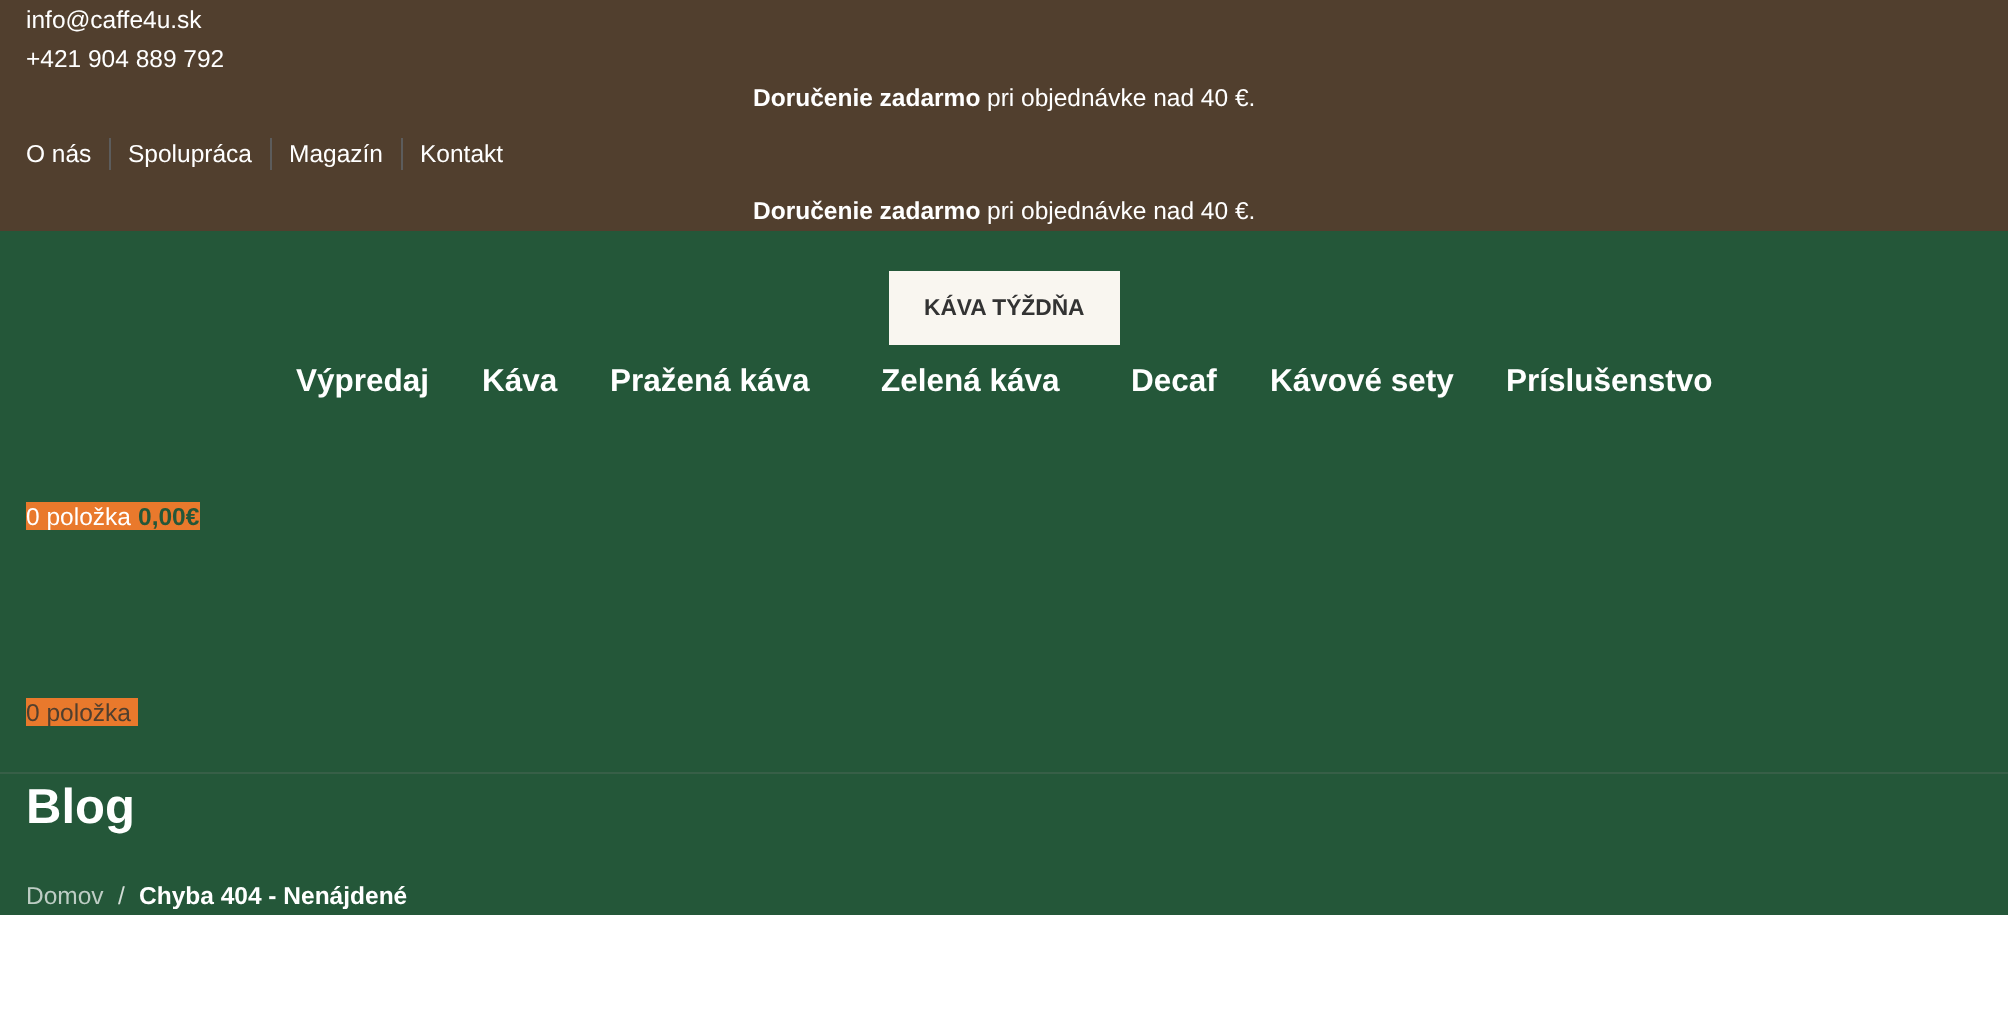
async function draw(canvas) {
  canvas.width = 2008
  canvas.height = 1016
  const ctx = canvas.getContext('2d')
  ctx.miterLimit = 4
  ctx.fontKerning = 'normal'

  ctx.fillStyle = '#fff'
  ctx.fillRect(0, 0, 2008, 1016)
  ctx.fillStyle = '#513f2e'
  ctx.fillRect(0, 0, 2008, 231)
  ctx.font = '24.5px Liberation Sans'
  ctx.fillStyle = '#fff'
  ctx.fillText('info@caffe4u.sk', 26, 28)
  ctx.fillText('+421 904 889 792', 26, 67)
  ctx.font = 'bold 24.5px Liberation Sans'
  ctx.fillText('Doručenie zadarmo', 753, 106)
  ctx.font = '24.5px Liberation Sans'
  ctx.fillText('pri objednávke nad 40 €.', 987, 106)
  ctx.fillText('O nás', 26, 162)
  ctx.fillStyle = '#5c5c5c'
  ctx.fillRect(109, 138, 2, 32)
  ctx.fillStyle = '#fff'
  ctx.fillText('Spolupráca', 128, 162)
  ctx.fillStyle = '#5c5c5c'
  ctx.fillRect(270, 138, 2, 32)
  ctx.fillStyle = '#fff'
  ctx.fillText('Magazín', 289, 162)
  ctx.fillStyle = '#5c5c5c'
  ctx.fillRect(401, 138, 2, 32)
  ctx.fillStyle = '#fff'
  ctx.fillText('Kontakt', 420, 162)
  ctx.font = 'bold 24.5px Liberation Sans'
  ctx.fillText('Doručenie zadarmo', 753, 219)
  ctx.font = '24.5px Liberation Sans'
  ctx.fillText('pri objednávke nad 40 €.', 987, 219)
  ctx.fillStyle = '#245739'
  ctx.fillRect(0, 231, 2008, 541)
  ctx.fillStyle = '#375f47'
  ctx.fillRect(0, 772, 2008, 2)
  ctx.fillStyle = '#f9f6f0'
  ctx.fillRect(889, 271, 231, 74)
  ctx.font = 'bold 22.75px Liberation Sans'
  ctx.fillStyle = '#333'
  ctx.fillText('KÁVA TÝŽDŇA', 924, 315)
  ctx.font = 'bold 31.5px Liberation Sans'
  ctx.fillStyle = '#fff'
  ctx.fillText('Výpredaj', 296, 391)
  ctx.fillText('Káva', 482, 391)
  ctx.fillText('Pražená káva', 610, 391)
  ctx.fillText('Zelená káva', 881, 391)
  ctx.fillText('Decaf', 1131, 391)
  ctx.fillText('Kávové sety', 1270, 391)
  ctx.fillText('Príslušenstvo', 1506, 391)
  ctx.fillStyle = '#e9792c'
  ctx.fillRect(26, 502, 174, 28)
  ctx.font = '24.5px Liberation Sans'
  ctx.fillStyle = '#fff'
  ctx.fillText('0 položka', 26, 525)
  ctx.font = 'bold 24.5px Liberation Sans'
  ctx.fillStyle = '#245739'
  ctx.fillText('0,00€', 138, 525)
  ctx.fillStyle = '#e9792c'
  ctx.fillRect(26, 698, 112, 28)
  ctx.font = '24.5px Liberation Sans'
  ctx.fillStyle = '#513f2e'
  ctx.fillText('0 položka', 26, 721)
  ctx.fillStyle = '#245739'
  ctx.fillRect(0, 774, 2008, 141)
  ctx.font = 'bold 49px Liberation Sans'
  ctx.fillStyle = '#fff'
  ctx.fillText('Blog', 26, 823)
  ctx.font = '24.5px Liberation Sans'
  ctx.fillStyle = '#bdcdc4'
  ctx.fillText('Domov', 26, 904)
  ctx.fillStyle = '#d3ddd7'
  ctx.fillText('/', 118, 904)
  ctx.font = 'bold 24.5px Liberation Sans'
  ctx.fillStyle = '#fff'
  ctx.fillText('Chyba 404 - Nenájdené', 139, 904)
}

draw(document.querySelector('canvas'))
